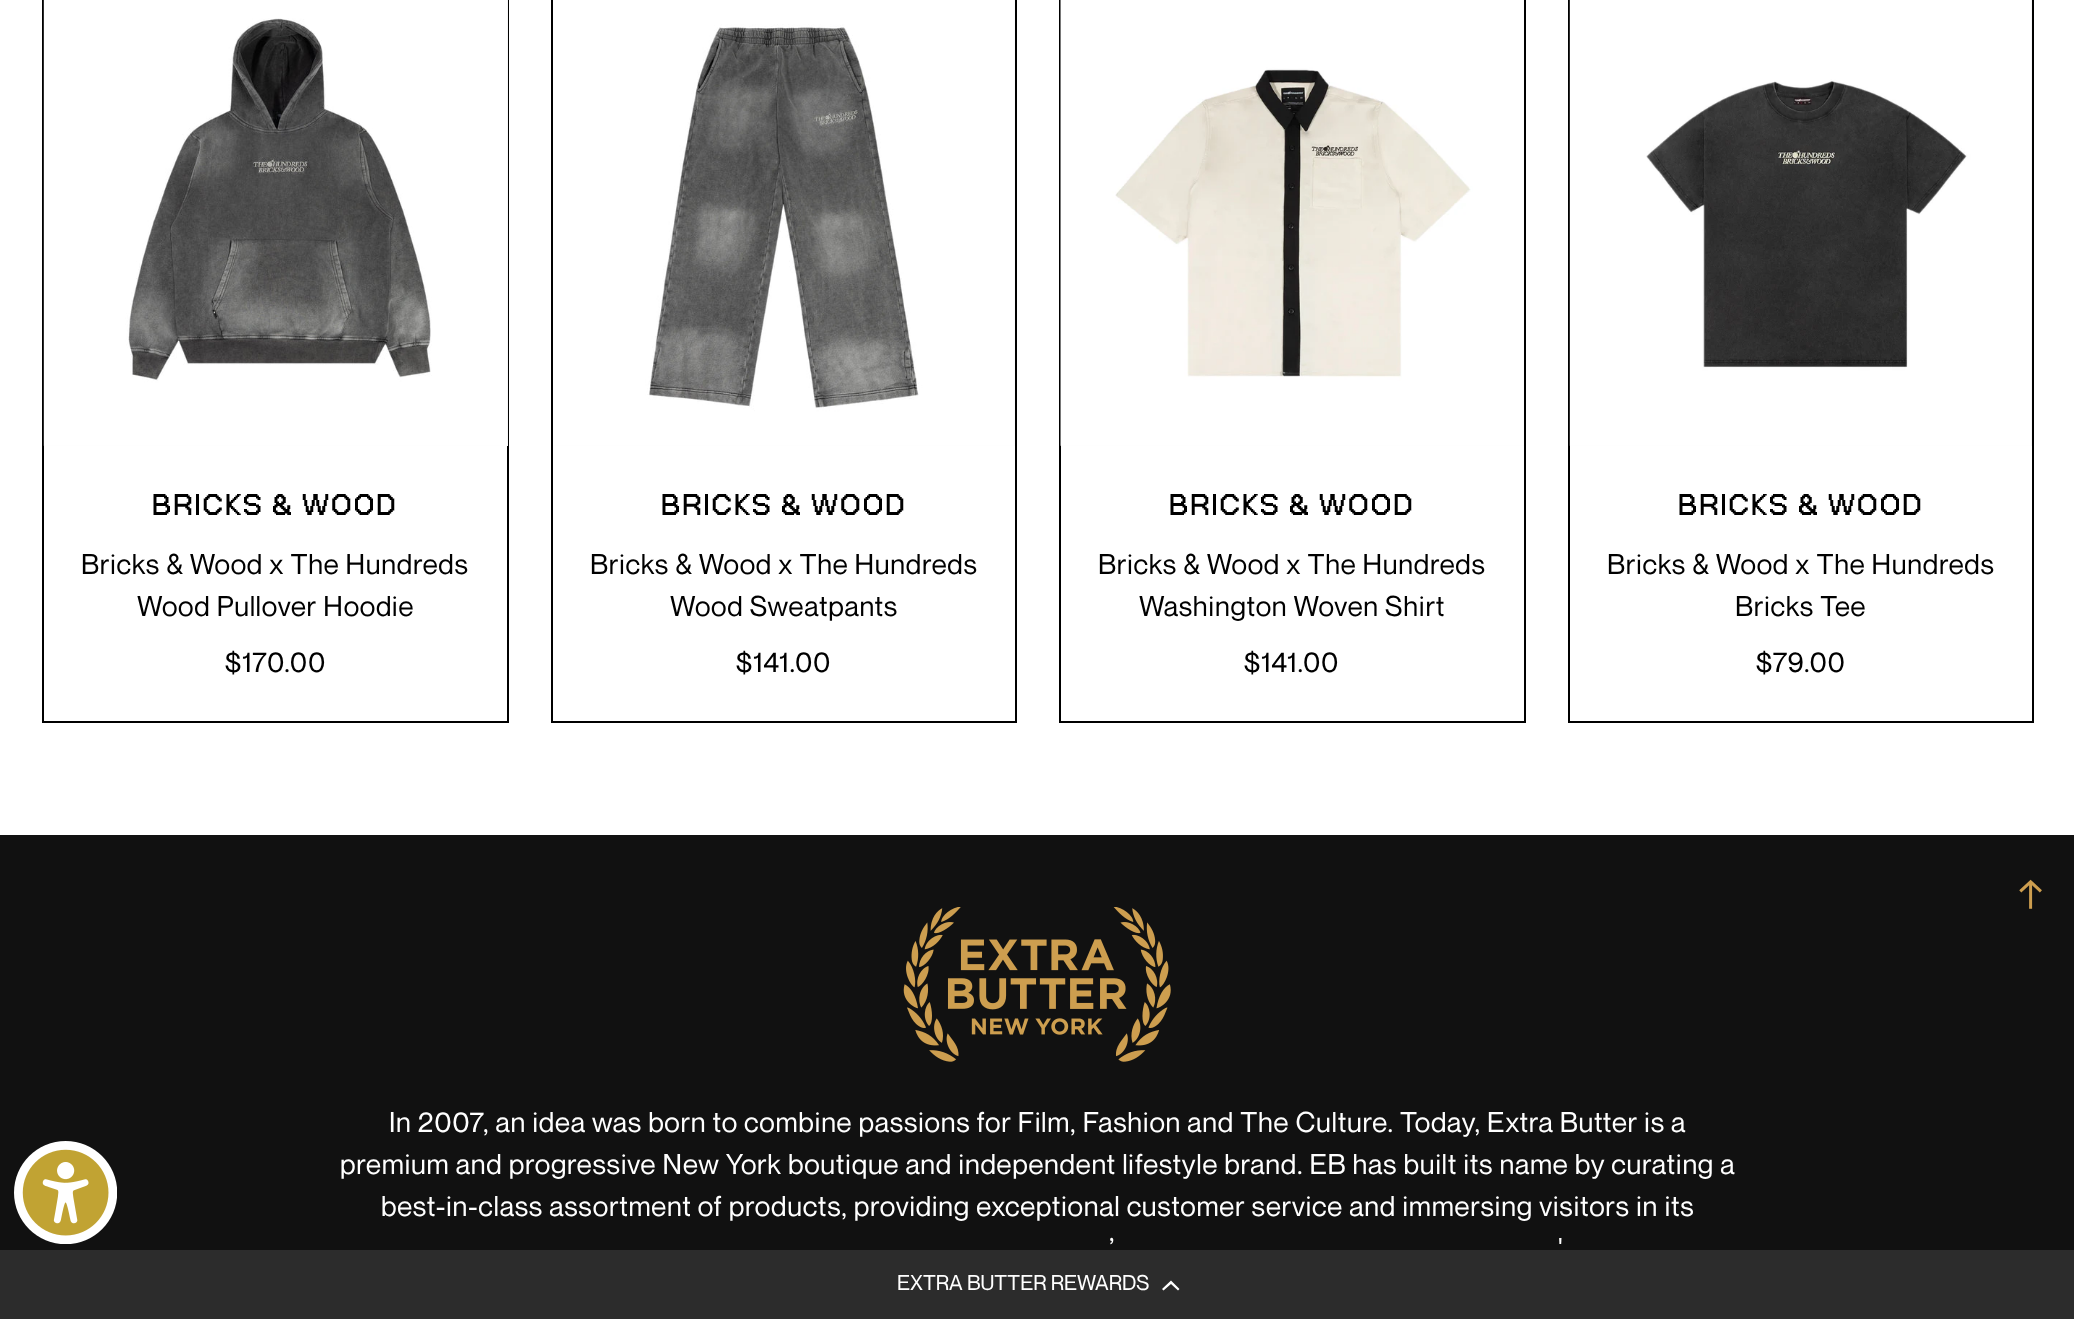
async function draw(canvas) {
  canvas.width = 2074
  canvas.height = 1319
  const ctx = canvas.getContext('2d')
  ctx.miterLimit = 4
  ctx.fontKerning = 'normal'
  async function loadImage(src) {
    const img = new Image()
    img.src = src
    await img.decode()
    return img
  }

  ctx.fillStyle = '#fff'
  ctx.fillRect(0, 0, 2074, 1319)
  ctx.fillStyle = '#111'
  ctx.fillRect(0, 835, 2074, 415)
  ctx.drawImage(await loadImage('image0.png'), 14, 1141, 103, 103)
  ctx.strokeStyle = '#000'
  ctx.lineWidth = 2
  ctx.strokeRect(43, -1, 465, 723)
  ctx.fillStyle = '#f6f6f7'
  ctx.fillRect(44, 0, 464, 446)
  ctx.drawImage(await loadImage('image1.png'), 43, 0, 464, 446)
  ctx.letterSpacing = '1.75px'
  ctx.font = 'bold 42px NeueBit'
  ctx.fillStyle = '#000'
  ctx.fillText('BRICKS & WOOD', 152, 515)
  ctx.letterSpacing = '0.7px'
  ctx.font = '28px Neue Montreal'
  ctx.fillText('Bricks & Wood x The Hundreds', 81, 574)
  ctx.fillText('Wood Pullover Hoodie', 137, 616)
  ctx.fillText('$170.00', 225, 672)
  ctx.strokeRect(552, -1, 464, 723)
  ctx.fillStyle = '#f6f6f7'
  ctx.fillRect(553, 0, 462, 446)
  ctx.drawImage(await loadImage('image2.png'), 553, 0, 462, 446)
  ctx.letterSpacing = '1.75px'
  ctx.font = 'bold 42px NeueBit'
  ctx.fillStyle = '#000'
  ctx.fillText('BRICKS & WOOD', 661, 515)
  ctx.letterSpacing = '0.7px'
  ctx.font = '28px Neue Montreal'
  ctx.fillText('Bricks & Wood x The Hundreds', 590, 574)
  ctx.fillText('Wood Sweatpants', 670, 616)
  ctx.fillText('$141.00', 736, 672)
  ctx.strokeRect(1060, -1, 465, 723)
  ctx.fillStyle = '#f6f6f7'
  ctx.fillRect(1061, 0, 463, 446)
  ctx.drawImage(await loadImage('image3.png'), 1060, 0, 464, 446)
  ctx.letterSpacing = '1.75px'
  ctx.font = 'bold 42px NeueBit'
  ctx.fillStyle = '#000'
  ctx.fillText('BRICKS & WOOD', 1169, 515)
  ctx.letterSpacing = '0.7px'
  ctx.font = '28px Neue Montreal'
  ctx.fillText('Bricks & Wood x The Hundreds', 1098, 574)
  ctx.fillText('Washington Woven Shirt', 1139, 616)
  ctx.fillText('$141.00', 1244, 672)
  ctx.strokeRect(1569, -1, 464, 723)
  ctx.fillStyle = '#f6f6f7'
  ctx.fillRect(1570, 0, 462, 446)
  ctx.drawImage(await loadImage('image4.png'), 1569, 0, 462, 446)
  ctx.letterSpacing = '1.75px'
  ctx.font = 'bold 42px NeueBit'
  ctx.fillStyle = '#000'
  ctx.fillText('BRICKS & WOOD', 1678, 515)
  ctx.letterSpacing = '0.7px'
  ctx.font = '28px Neue Montreal'
  ctx.fillText('Bricks & Wood x The Hundreds', 1607, 574)
  ctx.fillText('Bricks Tee', 1735, 616)
  ctx.fillText('$79.00', 1756, 672)
  ctx.letterSpacing = '0px'
  ctx.font = '42px Neue Montreal'
  ctx.fillStyle = '#cd9e4f'
  ctx.save()
  ctx.translate(2044, 910)
  ctx.rotate(-90 * Math.PI / 180)
  ctx.fillText('→', 0, 0)
  ctx.restore()
  ctx.drawImage(await loadImage('image5.png'), 903, 907, 268, 155)
  ctx.letterSpacing = '0.7px'
  ctx.font = '28px Neue Montreal'
  ctx.fillStyle = '#fff'
  ctx.fillText('In 2007, an idea was born to combine passions for Film, Fashion and The Culture. Today, Extra Butter is a', 389, 1132)
  ctx.fillText('premium and progressive New York boutique and independent lifestyle brand. EB has built its name by curating a', 340, 1174)
  ctx.fillText('best-in-class assortment of products, providing exceptional customer service and immersing visitors in its', 381, 1216)
  ctx.fillText('’', 1109, 1258)
  ctx.fillText('\'', 1558, 1258)
  ctx.fillStyle = '#2c2c2c'
  ctx.fillRect(0, 1250, 2074, 69)
  ctx.letterSpacing = '0px'
  ctx.font = '21px Neue Montreal'
  ctx.fillStyle = '#fff'
  ctx.fillText('EXTRA BUTTER REWARDS', 897, 1290)
  ctx.beginPath()
  ctx.moveTo(1171, 1284)
  ctx.lineTo(1163.5, 1290.5)
  ctx.lineTo(1162, 1289)
  ctx.lineTo(1171, 1280.5)
  ctx.lineTo(1179.5, 1289)
  ctx.lineTo(1178, 1290.5)
  ctx.closePath()
  ctx.fill()
}

draw(document.querySelector('canvas'))
